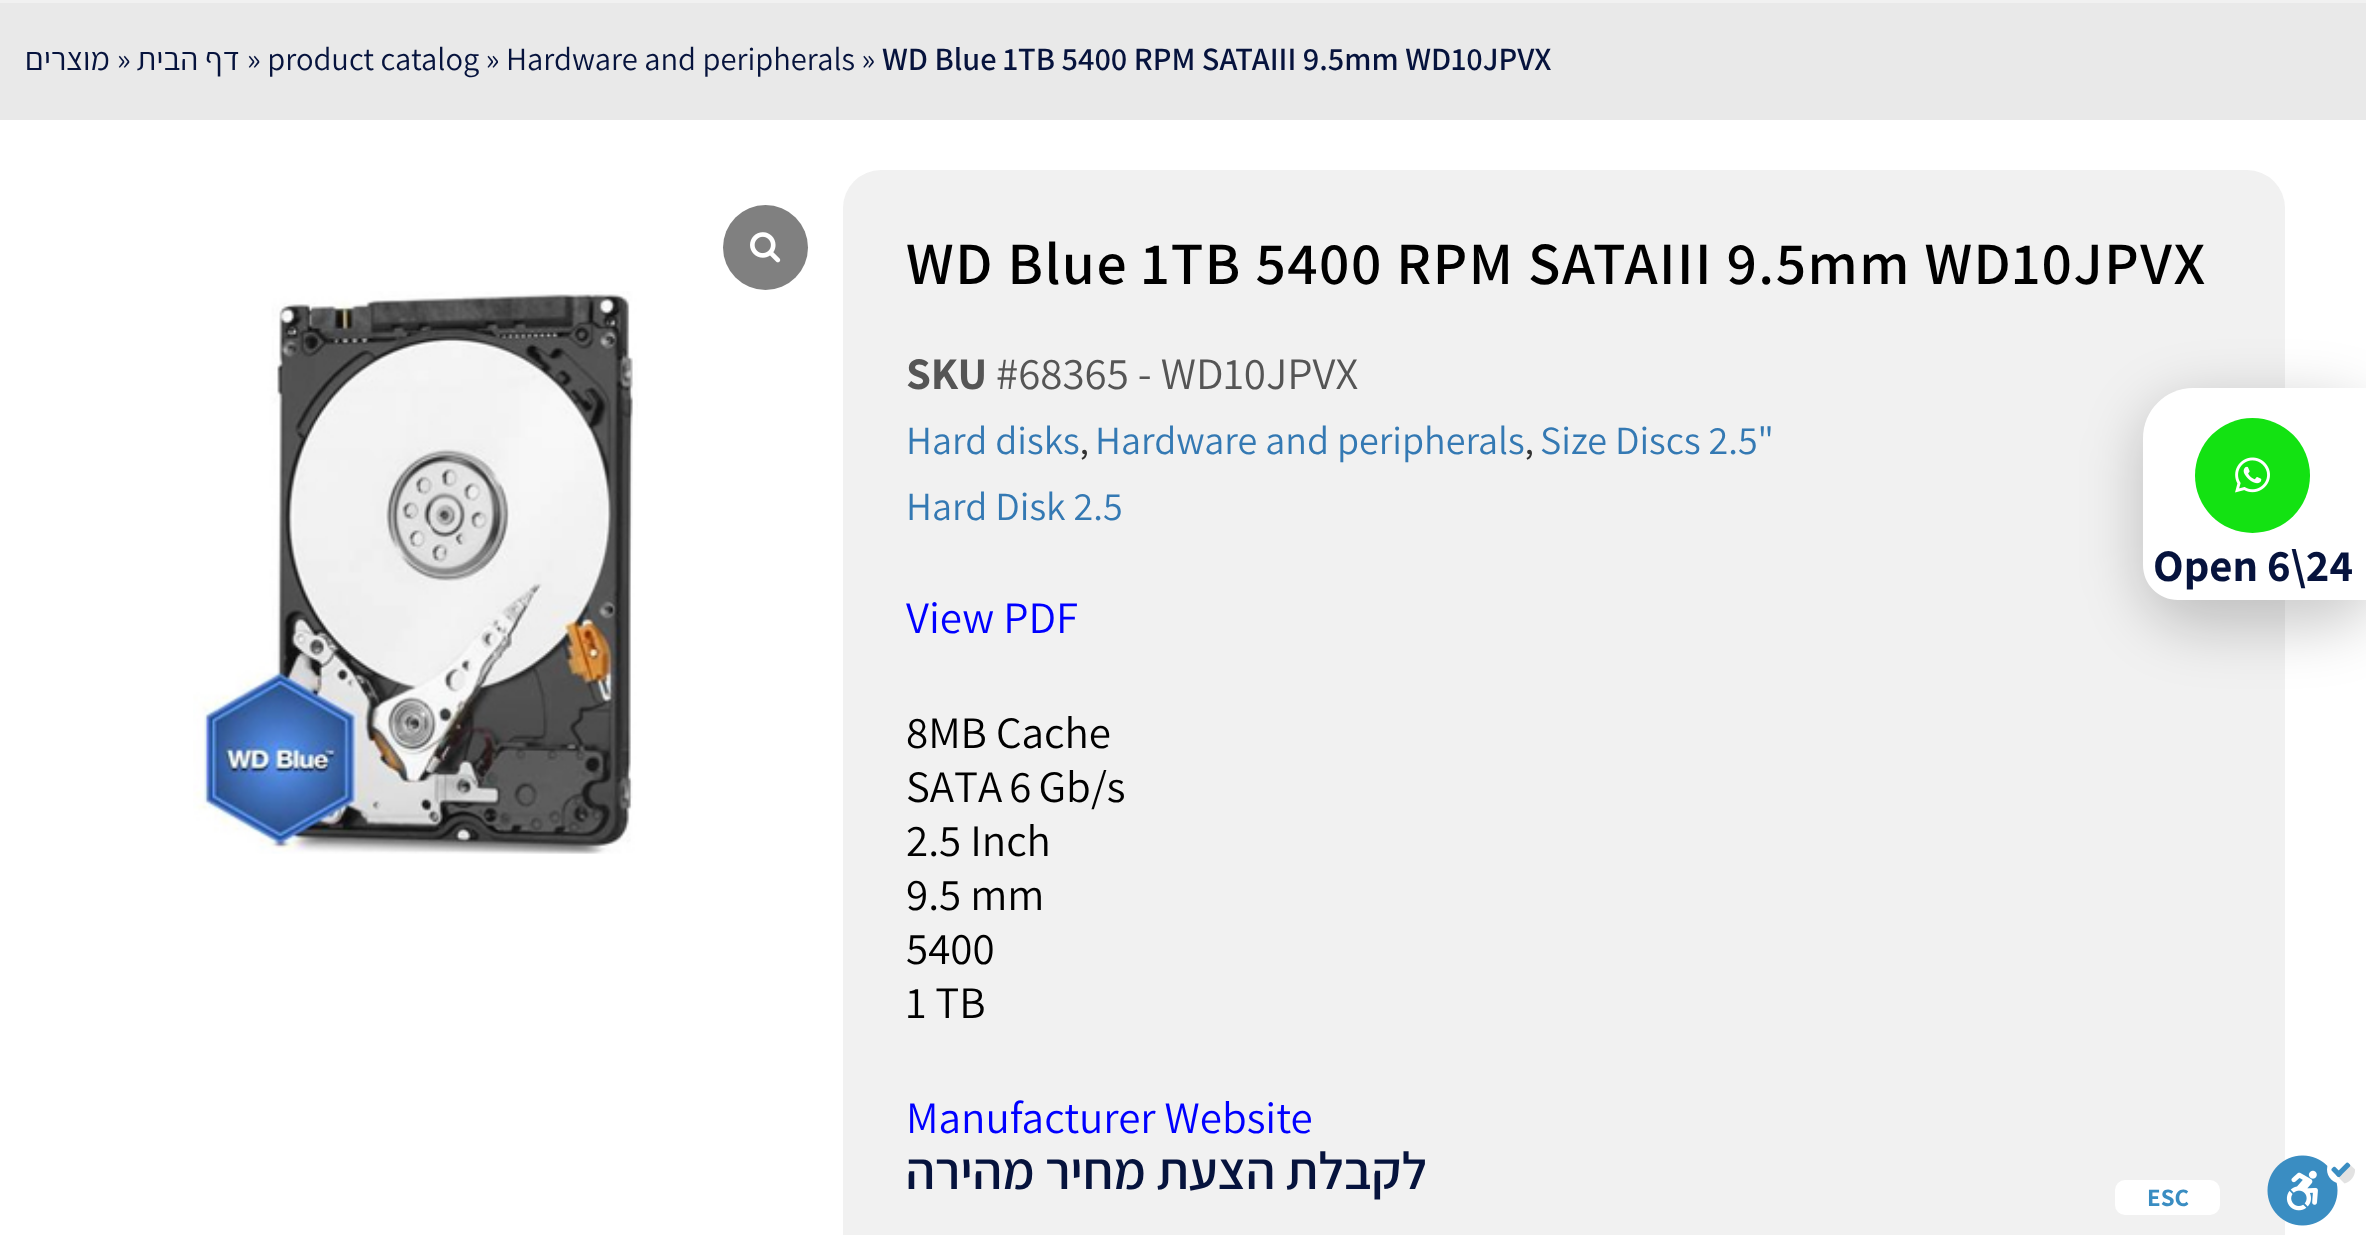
async function draw(canvas) {
  canvas.width = 2366
  canvas.height = 1235
  const ctx = canvas.getContext('2d')
  ctx.miterLimit = 4
  ctx.fontKerning = 'normal'
  async function loadImage(src) {
    const img = new Image()
    img.src = src
    await img.decode()
    return img
  }

  ctx.fillStyle = '#fff'
  ctx.fillRect(0, 0, 2366, 1235)
  ctx.fillStyle = '#f1f1f1'
  ctx.fillRect(0, 0, 2366, 3)
  ctx.fillStyle = '#e9e9e9'
  ctx.fillRect(0, 3, 2366, 117)
  ctx.direction = 'rtl'
  ctx.font = '32.5px Assistant'
  ctx.fillStyle = '#06133d'
  ctx.fillText('מוצרים', 110, 70)
  ctx.direction = 'ltr'
  ctx.fillText('»', 117, 70)
  ctx.direction = 'rtl'
  ctx.fillText('דף הבית', 240, 70)
  ctx.direction = 'ltr'
  ctx.fillText('» product catalog » Hardware and peripherals »', 247, 70)
  ctx.font = '600 32.5px Assistant'
  ctx.fillText('WD Blue 1TB 5400 RPM SATAIII 9.5mm WD10JPVX', 882, 70)
  ctx.fillStyle = '#808080'
  ctx.beginPath()
  ctx.arc(765.5, 247.5, 42.5, 0, 2 * Math.PI)
  ctx.fill()
  ctx.drawImage(await loadImage('image0.png'), 750, 232, 31, 31)
  ctx.drawImage(await loadImage('image1.png'), 193, 291, 445, 563)
  ctx.fillStyle = '#f1f1f1'
  ctx.beginPath()
  ctx.roundRect(843, 170, 1442, 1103, 38)
  ctx.fill()
  ctx.letterSpacing = '1.5px'
  ctx.font = '600 60px Assistant'
  ctx.fillStyle = '#000'
  ctx.fillText('WD Blue 1TB 5400 RPM SATAIII 9.5mm WD10JPVX', 906, 284)
  ctx.letterSpacing = '0px'
  ctx.font = 'bold 45px Assistant'
  ctx.fillStyle = '#555'
  ctx.fillText('SKU', 906, 389)
  ctx.font = '45px Assistant'
  ctx.fillText('#68365 - WD10JPVX', 996, 389)
  ctx.font = '40px Assistant'
  ctx.fillStyle = '#3479b3'
  ctx.fillText('Hard disks', 906, 454)
  ctx.font = '600 32.5px Assistant'
  ctx.fillStyle = '#333'
  ctx.fillText(',', 1080, 454)
  ctx.font = '40px Assistant'
  ctx.fillStyle = '#3479b3'
  ctx.fillText('Hardware and peripherals', 1095, 454)
  ctx.font = '600 32.5px Assistant'
  ctx.fillStyle = '#333'
  ctx.fillText(',', 1525, 454)
  ctx.font = '40px Assistant'
  ctx.fillStyle = '#3479b3'
  ctx.fillText('Size Discs 2.5"', 1540, 454)
  ctx.fillText('Hard Disk 2.5', 906, 520)
  ctx.font = '45px Assistant'
  ctx.fillStyle = '#00f'
  ctx.fillText('View PDF', 906, 633)
  ctx.fillStyle = '#000'
  ctx.fillText('8MB Cache', 906, 748)
  ctx.wordSpacing = '-2px'
  ctx.fillText('SATA 6 Gb/s', 906, 802)
  ctx.wordSpacing = '0px'
  ctx.fillText('2.5 Inch', 906, 856)
  ctx.fillText('9.5 mm', 906, 910)
  ctx.fillText('5400', 906, 964)
  ctx.fillText('1 TB', 906, 1018)
  ctx.fillStyle = '#00f'
  ctx.fillText('Manufacturer Website', 906, 1133)
  ctx.direction = 'rtl'
  ctx.font = '600 52.5px Assistant'
  ctx.fillStyle = '#06133d'
  ctx.fillText('לקבלת הצעת מחיר מהירה', 1427, 1189)
  ctx.fillStyle = '#00000033'
  ctx.filter = 'blur(29px)'
  ctx.beginPath()
  ctx.roundRect(2140, 400, 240, 228, 58)
  ctx.fill()
  ctx.filter = 'none'
  ctx.fillStyle = '#fff'
  ctx.beginPath()
  ctx.moveTo(2193, 388)
  ctx.lineTo(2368, 388)
  ctx.lineTo(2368, 600)
  ctx.lineTo(2178, 600)
  ctx.bezierCurveTo(2158.5, 600, 2143, 584.5, 2143, 565)
  ctx.lineTo(2143, 438)
  ctx.bezierCurveTo(2143, 410.5, 2165.5, 388, 2193, 388)
  ctx.closePath()
  ctx.fill()
  ctx.fillStyle = '#13e212'
  ctx.beginPath()
  ctx.arc(2252.5, 475.5, 57.5, 0, 2 * Math.PI)
  ctx.fill()
  ctx.drawImage(await loadImage('image2.png'), 2235, 457, 35, 36)
  ctx.direction = 'ltr'
  ctx.font = 'bold 45px Assistant'
  ctx.fillStyle = '#06133d'
  ctx.fillText('Open 6\\24', 2153, 581)
  ctx.fillStyle = '#fff'
  ctx.beginPath()
  ctx.roundRect(2115, 1180, 105, 35, 10)
  ctx.fill()
  ctx.font = 'bold 25px Assistant'
  ctx.fillStyle = '#3a8dc2'
  ctx.fillText('ESC', 2147, 1206)
  ctx.drawImage(await loadImage('image3.png'), 2267, 1155, 88, 71)
}

draw(document.querySelector('canvas'))
